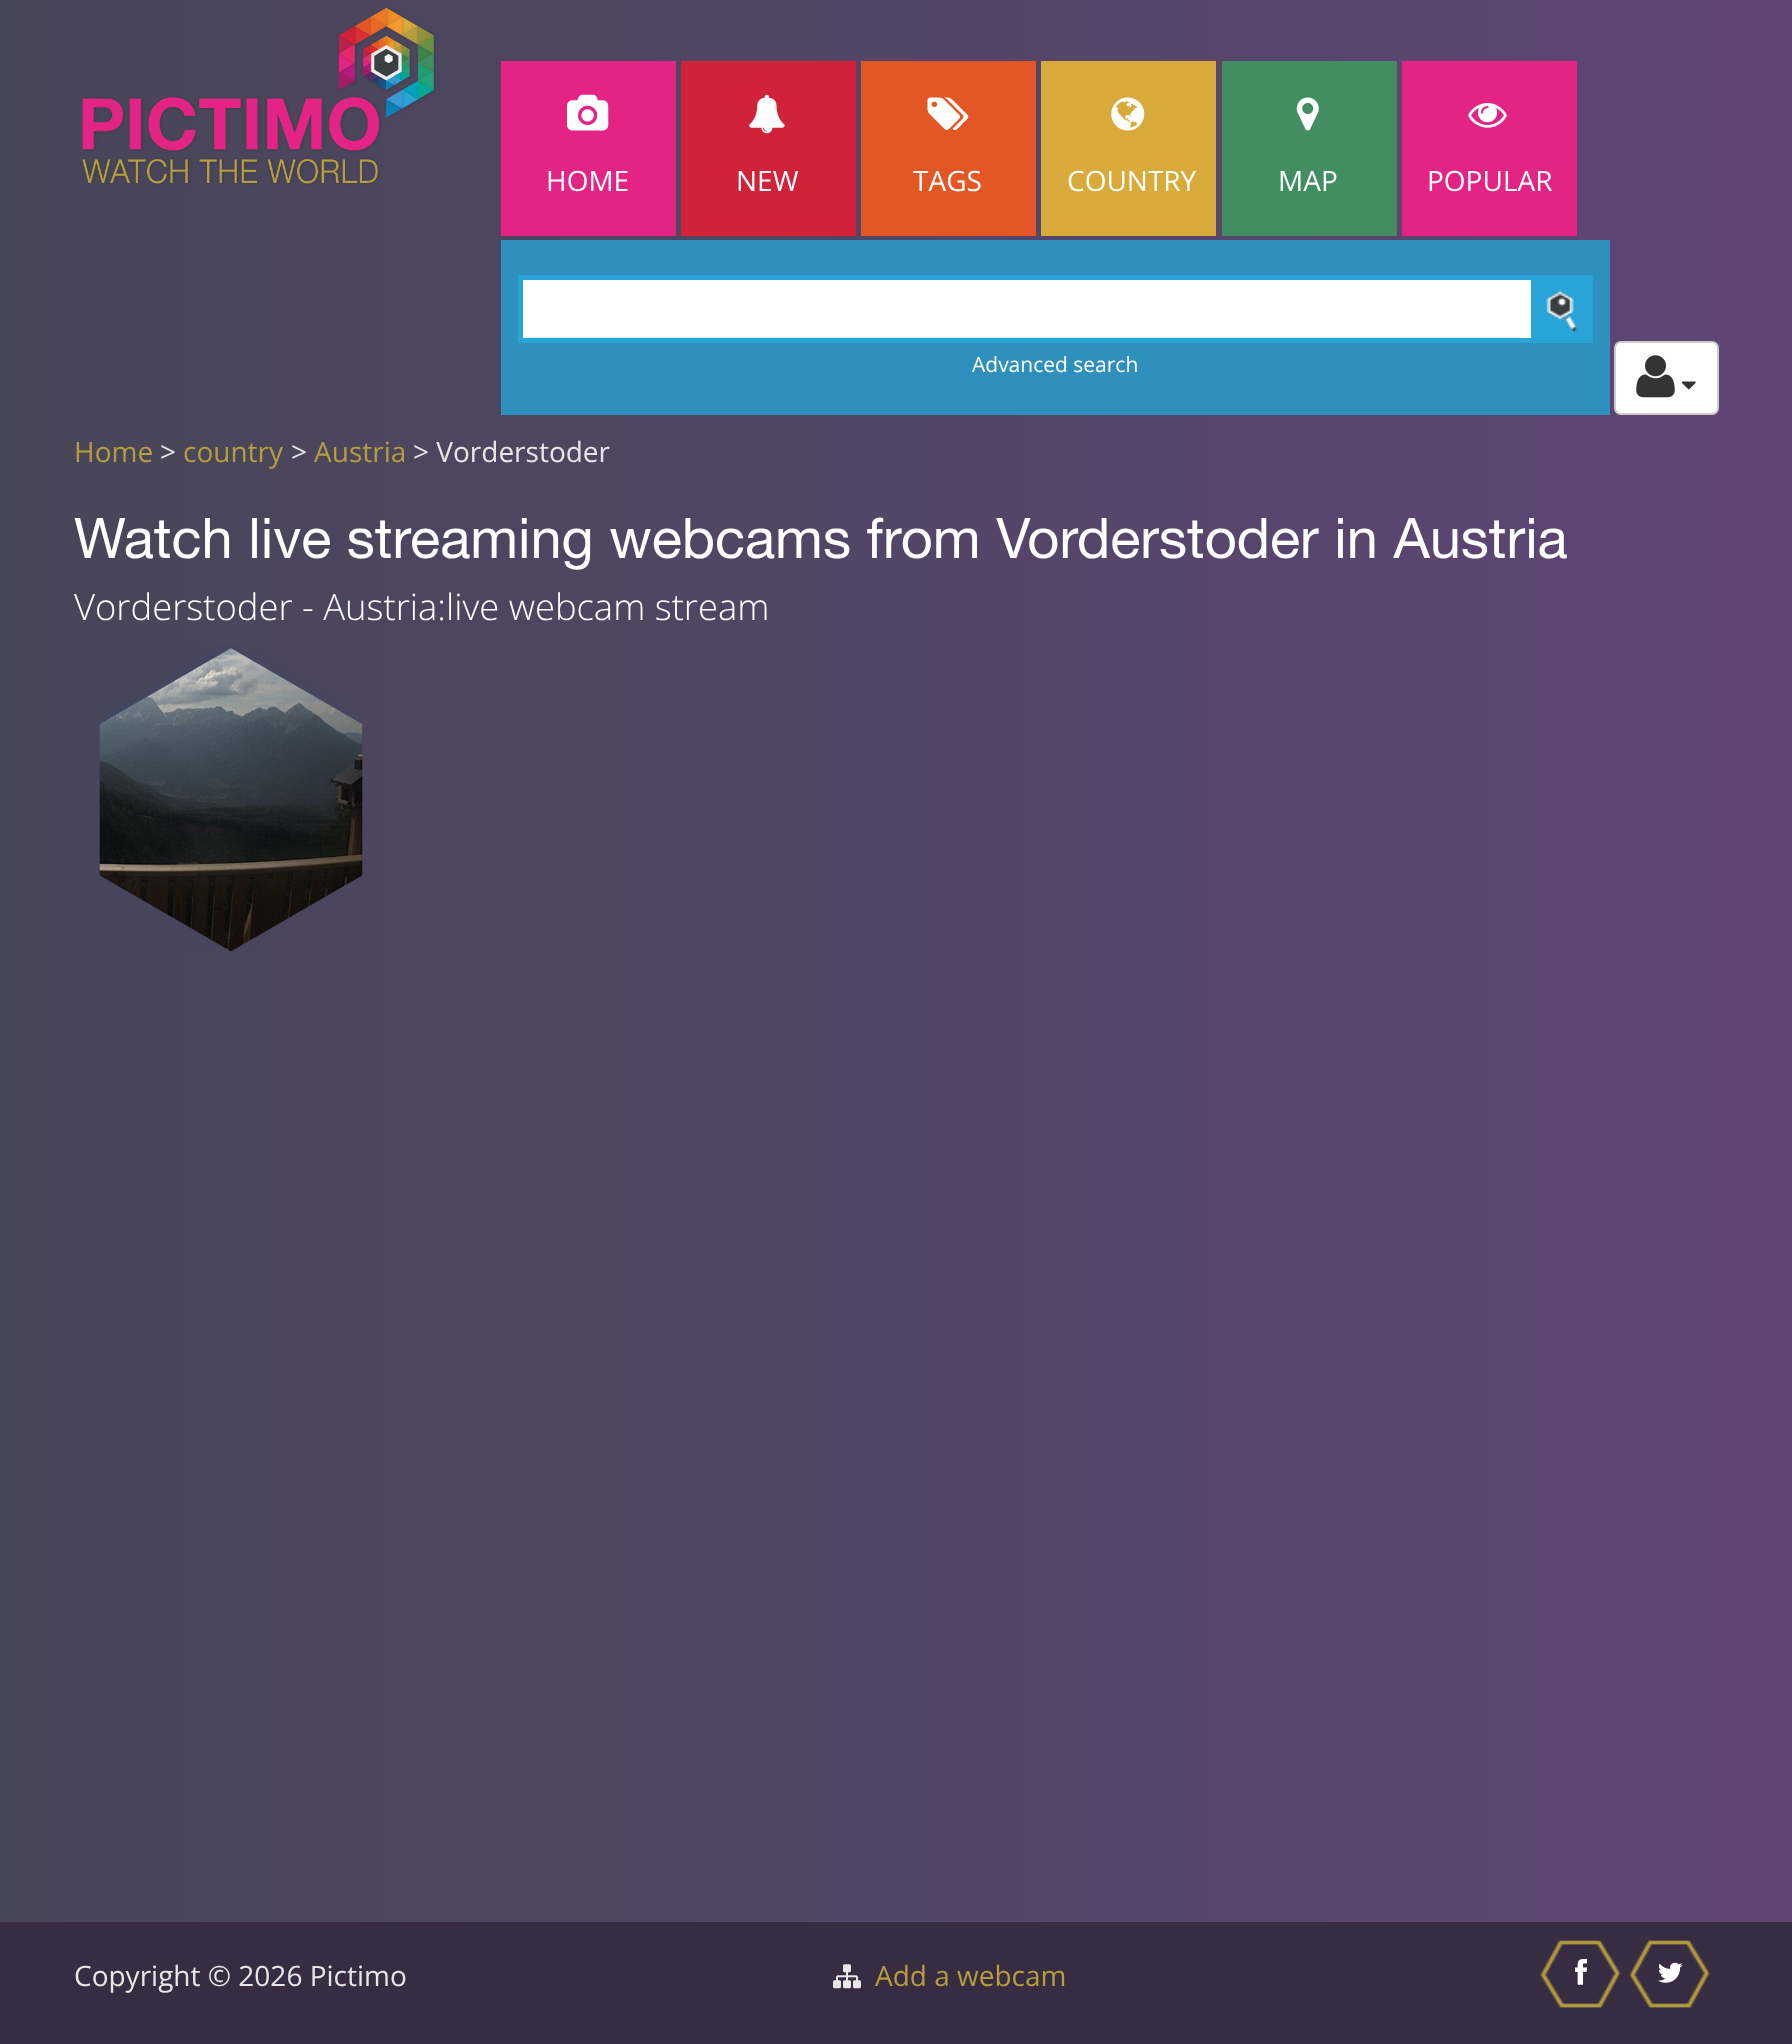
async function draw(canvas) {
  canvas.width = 1792
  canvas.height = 2044
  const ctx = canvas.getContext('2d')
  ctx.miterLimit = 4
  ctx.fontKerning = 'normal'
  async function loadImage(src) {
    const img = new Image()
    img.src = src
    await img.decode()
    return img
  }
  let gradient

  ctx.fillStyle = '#fff'
  ctx.fillRect(0, 0, 1792, 2044)
  gradient = ctx.createLinearGradient(0, 595, 1792, 595)
  gradient.addColorStop(0, '#474657')
  gradient.addColorStop(1, '#5f4576')
  ctx.fillStyle = gradient
  ctx.fillRect(0, 0, 1792, 1922)
  ctx.drawImage(await loadImage('image0.png'), 82, 7, 354, 178)
  ctx.fillStyle = '#e32484'
  ctx.fillRect(501, 61, 175, 175)
  ctx.drawImage(await loadImage('image1.png'), 567, 94, 42, 37)
  ctx.font = '28px Open Sans'
  ctx.fillStyle = '#fff'
  ctx.fillText('HOME', 546, 191)
  ctx.fillStyle = '#d2223a'
  ctx.fillRect(681, 61, 175, 175)
  ctx.drawImage(await loadImage('image2.png'), 749, 94, 36, 40)
  ctx.fillStyle = '#fff'
  ctx.fillText('NEW', 736, 191)
  ctx.fillStyle = '#e35626'
  ctx.fillRect(861, 61, 175, 175)
  ctx.drawImage(await loadImage('image3.png'), 927, 97, 42, 33)
  ctx.fillStyle = '#fff'
  ctx.fillText('TAGS', 913, 191)
  ctx.fillStyle = '#d8aa3a'
  ctx.fillRect(1041, 61, 175, 175)
  ctx.drawImage(await loadImage('image4.png'), 1111, 97, 34, 34)
  ctx.fillStyle = '#fff'
  ctx.fillText('COUNTRY', 1067, 191)
  ctx.fillStyle = '#428e62'
  ctx.fillRect(1222, 61, 175, 175)
  ctx.drawImage(await loadImage('image5.png'), 1296, 97, 23, 34)
  ctx.fillStyle = '#fff'
  ctx.fillText('MAP', 1278, 191)
  ctx.fillStyle = '#e32484'
  ctx.fillRect(1402, 61, 175, 175)
  ctx.drawImage(await loadImage('image6.png'), 1468, 103, 39, 25)
  ctx.fillStyle = '#fff'
  ctx.fillText('POPULAR', 1427, 191)
  ctx.fillStyle = '#2f90be'
  ctx.fillRect(501, 240, 1109, 175)
  ctx.fillStyle = '#fff'
  ctx.fillRect(523, 280, 1008, 58)
  ctx.strokeStyle = '#29a4d8'
  ctx.lineWidth = 5
  ctx.strokeRect(520.5, 277.5, 1070, 63)
  ctx.fillStyle = '#29a4d8'
  ctx.fillRect(1531, 280, 57, 58)
  ctx.drawImage(await loadImage('image7.png'), 1546, 290, 32, 43)
  ctx.font = '21px Open Sans'
  ctx.fillStyle = '#fff'
  ctx.fillText('Advanced search', 972, 372)
  ctx.beginPath()
  ctx.roundRect(1615, 342, 103, 72, 6)
  ctx.fill()
  ctx.strokeStyle = '#ccc'
  ctx.lineWidth = 2
  ctx.stroke()
  ctx.drawImage(await loadImage('image8.png'), 1636, 355, 39, 43)
  ctx.drawImage(await loadImage('image9.png'), 1681, 381, 15, 9)
  ctx.font = '28px Open Sans'
  ctx.fillStyle = '#b69d3e'
  ctx.fillText('Home', 74, 462)
  ctx.fillStyle = '#e7e7e7'
  ctx.fillText('>', 160, 462)
  ctx.fillStyle = '#b69d3e'
  ctx.fillText('country', 183, 462)
  ctx.fillStyle = '#e7e7e7'
  ctx.fillText('>', 291, 462)
  ctx.fillStyle = '#b69d3e'
  ctx.fillText('Austria', 314, 462)
  ctx.fillStyle = '#e7e7e7'
  ctx.fillText('> Vorderstoder', 413, 462)
  ctx.font = '56px Helvetica Neue'
  ctx.fillStyle = '#fff'
  ctx.fillText('Watch live streaming webcams from Vorderstoder in Austria', 74, 558)
  ctx.font = '300 36.4px Open Sans'
  ctx.fillText('Vorderstoder - Austria:live webcam stream', 74, 620)
  ctx.drawImage(await loadImage('image10.png'), 98, 645, 265, 307)
  ctx.fillStyle = '#382c42'
  ctx.fillRect(0, 1922, 1792, 122)
  ctx.font = '28px Open Sans'
  ctx.fillStyle = '#e7e7e7'
  ctx.fillText('Copyright © 2026 Pictimo', 74, 1986)
  ctx.drawImage(await loadImage('image11.png'), 833, 1964, 28, 25)
  ctx.fillStyle = '#b69d3e'
  ctx.fillText('Add a webcam', 875, 1986)
  ctx.drawImage(await loadImage('image12.png'), 1540, 1940, 81, 68)
  ctx.drawImage(await loadImage('image13.png'), 1575, 1959, 12, 26)
  ctx.drawImage(await loadImage('image14.png'), 1629, 1940, 81, 68)
  ctx.drawImage(await loadImage('image15.png'), 1658, 1962, 25, 21)
}

draw(document.querySelector('canvas'))
